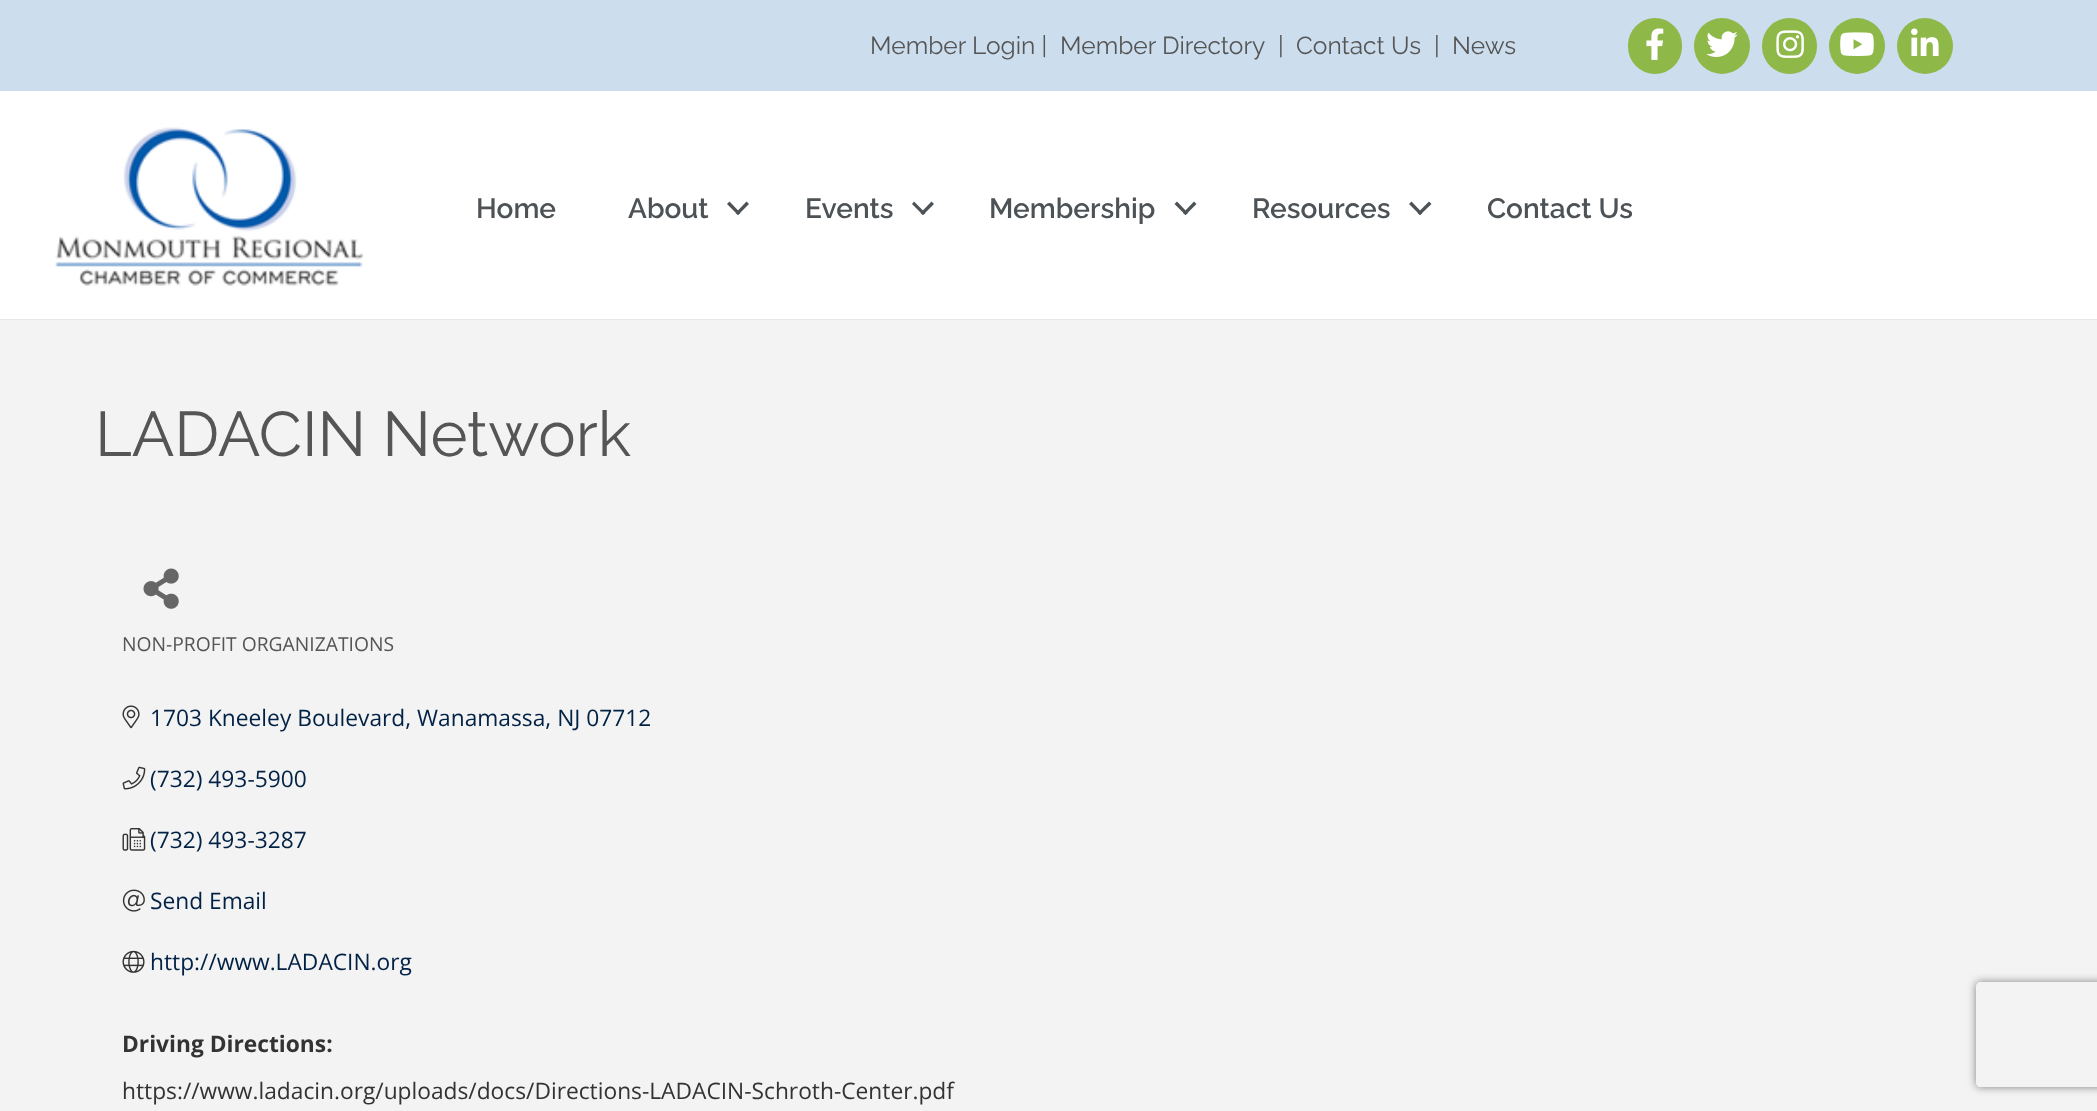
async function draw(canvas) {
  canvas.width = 2097
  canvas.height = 1111
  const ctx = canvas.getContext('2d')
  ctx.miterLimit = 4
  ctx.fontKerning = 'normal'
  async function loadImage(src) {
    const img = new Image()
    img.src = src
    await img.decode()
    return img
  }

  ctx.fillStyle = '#cde'
  ctx.fillRect(0, 0, 2097, 1111)
  ctx.font = '24.5px Raleway'
  ctx.fillStyle = '#555'
  ctx.fillText('Member Login |', 870, 54)
  ctx.fillText('Member Directory', 1060, 54)
  ctx.fillText('|', 1278, 54)
  ctx.fillText('Contact Us', 1296, 54)
  ctx.fillText('|', 1434, 54)
  ctx.fillText('News', 1452, 54)
  ctx.fillStyle = '#8eb848'
  ctx.beginPath()
  ctx.roundRect(1628, 18, 54, 56, 27)
  ctx.fill()
  ctx.drawImage(await loadImage('image0.png'), 1646, 28, 18, 32)
  ctx.beginPath()
  ctx.arc(1722, 46, 28, 0, 2 * Math.PI)
  ctx.fill()
  ctx.drawImage(await loadImage('image1.png'), 1706, 31, 32, 26)
  ctx.beginPath()
  ctx.roundRect(1762, 18, 55, 56, 27.5)
  ctx.fill()
  ctx.drawImage(await loadImage('image2.png'), 1776, 30, 28, 28)
  ctx.beginPath()
  ctx.arc(1857, 46, 28, 0, 2 * Math.PI)
  ctx.fill()
  ctx.drawImage(await loadImage('image3.png'), 1840, 32, 34, 24)
  ctx.beginPath()
  ctx.arc(1925, 46, 28, 0, 2 * Math.PI)
  ctx.fill()
  ctx.drawImage(await loadImage('image4.png'), 1911, 28, 28, 28)
  ctx.fillStyle = '#fff'
  ctx.fillRect(0, 91, 2097, 228)
  ctx.fillStyle = '#e8e8e8'
  ctx.fillRect(0, 319, 2097, 1)
  ctx.drawImage(await loadImage('image5.png'), 55, 127, 309, 159)
  ctx.font = '600 28px Raleway'
  ctx.fillStyle = '#4c5256'
  ctx.fillText('Home', 476, 218)
  ctx.fillText('About', 628, 218)
  ctx.beginPath()
  ctx.moveTo(746.5, 201.5)
  ctx.lineTo(749, 204)
  ctx.lineTo(738, 215)
  ctx.lineTo(735.5, 213)
  ctx.closePath()
  ctx.fill()
  ctx.beginPath()
  ctx.moveTo(729.5, 201.5)
  ctx.lineTo(740.5, 213)
  ctx.lineTo(738, 215)
  ctx.lineTo(727, 204)
  ctx.closePath()
  ctx.fill()
  ctx.fillText('Events', 805, 218)
  ctx.beginPath()
  ctx.moveTo(931.5, 201.5)
  ctx.lineTo(934, 204)
  ctx.lineTo(923, 215)
  ctx.lineTo(920.5, 213)
  ctx.closePath()
  ctx.fill()
  ctx.beginPath()
  ctx.moveTo(914, 201.5)
  ctx.lineTo(925.5, 213)
  ctx.lineTo(923, 215)
  ctx.lineTo(912, 204)
  ctx.closePath()
  ctx.fill()
  ctx.fillText('Membership', 989, 218)
  ctx.beginPath()
  ctx.moveTo(1194, 201.5)
  ctx.lineTo(1196.5, 204)
  ctx.lineTo(1185.5, 215)
  ctx.lineTo(1183, 213)
  ctx.closePath()
  ctx.fill()
  ctx.beginPath()
  ctx.moveTo(1177, 201.5)
  ctx.lineTo(1188, 213)
  ctx.lineTo(1185.5, 215)
  ctx.lineTo(1174.5, 204)
  ctx.closePath()
  ctx.fill()
  ctx.fillText('Resources', 1252, 218)
  ctx.beginPath()
  ctx.moveTo(1429, 201.5)
  ctx.lineTo(1431.5, 204)
  ctx.lineTo(1420, 215)
  ctx.lineTo(1417.5, 213)
  ctx.closePath()
  ctx.fill()
  ctx.beginPath()
  ctx.moveTo(1411.5, 201.5)
  ctx.lineTo(1422.5, 213)
  ctx.lineTo(1420, 215)
  ctx.lineTo(1409, 204)
  ctx.closePath()
  ctx.fill()
  ctx.fillText('Contact Us', 1487, 218)
  ctx.fillStyle = '#f3f3f3'
  ctx.fillRect(0, 320, 2097, 791)
  ctx.font = '63px Raleway'
  ctx.fillStyle = '#555'
  ctx.fillText('LADACIN Network', 95, 456)
  ctx.drawImage(await loadImage('image6.png'), 143, 568, 36, 41)
  ctx.font = '19.3px Open Sans'
  ctx.fillText('NON-PROFIT ORGANIZATIONS', 122, 651)
  ctx.drawImage(await loadImage('image7.png'), 122, 705, 18, 24)
  ctx.font = '22.75px Open Sans'
  ctx.fillStyle = '#012145'
  ctx.fillText('1703 Kneeley Boulevard, Wanamassa, NJ 07712', 150, 726)
  ctx.drawImage(await loadImage('image8.png'), 122, 766, 24, 24)
  ctx.fillText('(732) 493-5900', 150, 787)
  ctx.drawImage(await loadImage('image9.png'), 122, 828, 24, 23)
  ctx.fillText('(732) 493-3287', 150, 848)
  ctx.drawImage(await loadImage('image10.png'), 122, 889, 23, 23)
  ctx.fillText('Send Email', 150, 909)
  ctx.drawImage(await loadImage('image11.png'), 122, 950, 23, 23)
  ctx.fillText('http://www.LADACIN.org', 150, 970)
  ctx.font = 'bold 22.75px Open Sans'
  ctx.fillStyle = '#333'
  ctx.fillText('Driving Directions:', 122, 1052)
  ctx.font = '22.75px Open Sans'
  ctx.fillText('https://www.ladacin.org/uploads/docs/Directions-LADACIN-Schroth-Center.pdf', 122, 1099)
  ctx.save()
  ctx.beginPath()
  ctx.moveTo(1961, 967)
  ctx.lineTo(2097, 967)
  ctx.lineTo(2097, 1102)
  ctx.lineTo(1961, 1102)
  ctx.closePath()
  ctx.moveTo(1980, 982)
  ctx.lineTo(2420, 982)
  ctx.bezierCurveTo(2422, 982, 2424, 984, 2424, 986)
  ctx.lineTo(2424, 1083)
  ctx.bezierCurveTo(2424, 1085, 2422, 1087, 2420, 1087)
  ctx.lineTo(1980, 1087)
  ctx.bezierCurveTo(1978, 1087, 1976, 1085, 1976, 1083)
  ctx.lineTo(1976, 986)
  ctx.bezierCurveTo(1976, 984, 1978, 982, 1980, 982)
  ctx.closePath()
  ctx.clip('evenodd')
  ctx.fillStyle = '#808080'
  ctx.filter = 'blur(4.5px)'
  ctx.beginPath()
  ctx.roundRect(1976, 982, 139, 105, 4)
  ctx.fill()
  ctx.filter = 'none'
  ctx.restore()
}

draw(document.querySelector('canvas'))
